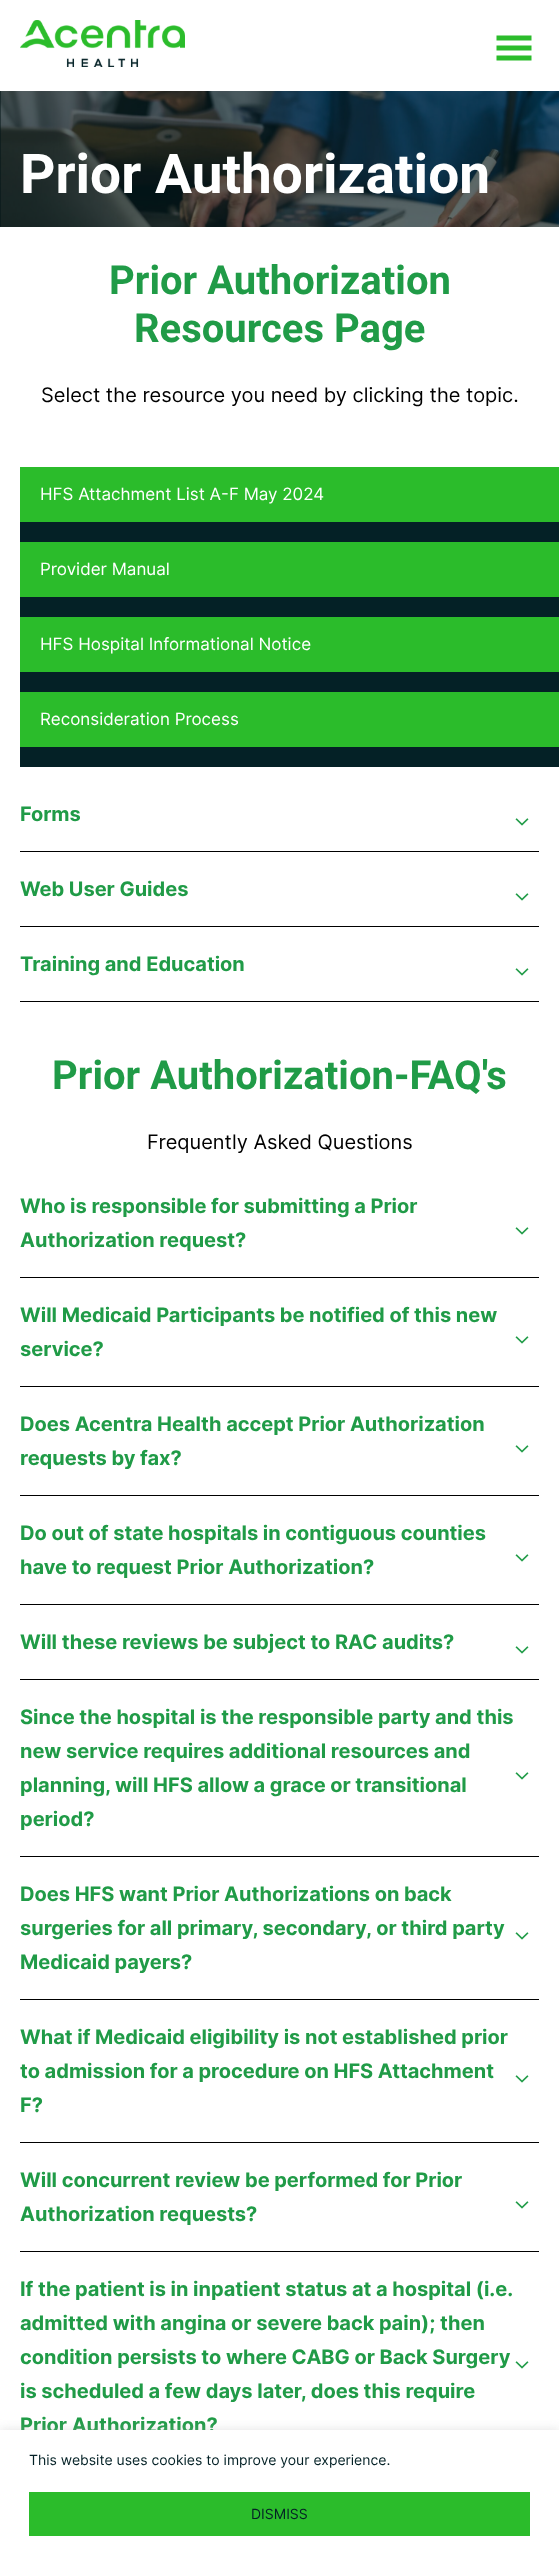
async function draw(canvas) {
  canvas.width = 559
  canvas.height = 2553
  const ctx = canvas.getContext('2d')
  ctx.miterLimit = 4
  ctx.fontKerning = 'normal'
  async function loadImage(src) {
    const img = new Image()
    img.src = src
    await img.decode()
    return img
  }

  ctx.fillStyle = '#fff'
  ctx.fillRect(0, 0, 559, 2553)
  ctx.drawImage(await loadImage('image0.png'), 20, 20, 165, 47)
  ctx.fillStyle = '#2bbc2b'
  ctx.beginPath()
  ctx.moveTo(496.5, 60.5)
  ctx.lineTo(531.5, 60.5)
  ctx.lineTo(531.5, 55.5)
  ctx.lineTo(496.5, 55.5)
  ctx.closePath()
  ctx.moveTo(496.5, 35.5)
  ctx.lineTo(496.5, 40.5)
  ctx.lineTo(531.5, 40.5)
  ctx.lineTo(531.5, 35.5)
  ctx.closePath()
  ctx.moveTo(496.5, 50.5)
  ctx.lineTo(531.5, 50.5)
  ctx.lineTo(531.5, 45.5)
  ctx.lineTo(496.5, 45.5)
  ctx.closePath()
  ctx.fill()
  ctx.fillStyle = '#021417'
  ctx.fillRect(0, 91, 1, 136)
  ctx.drawImage(await loadImage('image1.png'), 0, 91, 559, 136)
  ctx.font = 'bold 55px Roboto'
  ctx.fillStyle = '#fff'
  ctx.fillText('Prior Authorization', 20, 193)
  ctx.font = 'bold 40px Roboto'
  ctx.fillStyle = '#209b47'
  ctx.fillText('Prior Authorization', 109, 294)
  ctx.fillText('Resources Page', 134, 342)
  ctx.font = '20px Inter'
  ctx.fillStyle = '#000'
  ctx.fillText('Select the resource you need by clicking the topic.', 41, 402)
  ctx.fillStyle = '#042126'
  ctx.fillRect(20, 522, 539, 245)
  ctx.fillStyle = '#2bbc2b'
  ctx.fillRect(20, 467, 539, 55)
  ctx.font = '17px Inter'
  ctx.fillStyle = '#fff'
  ctx.fillText('HFS Attachment List A-F May 2024', 40, 500)
  ctx.fillStyle = '#2bbc2b'
  ctx.fillRect(20, 542, 539, 55)
  ctx.fillStyle = '#fff'
  ctx.fillText('Provider Manual', 40, 575)
  ctx.fillStyle = '#2bbc2b'
  ctx.fillRect(20, 617, 539, 55)
  ctx.fillStyle = '#fff'
  ctx.fillText('HFS Hospital Informational Notice', 40, 650)
  ctx.fillStyle = '#2bbc2b'
  ctx.fillRect(20, 692, 539, 55)
  ctx.fillStyle = '#fff'
  ctx.fillText('Reconsideration Process', 40, 725)
  ctx.fillStyle = '#000'
  ctx.fillRect(20, 851, 519, 1)
  ctx.font = 'bold 20px Inter'
  ctx.fillStyle = '#209b47'
  ctx.fillText('Forms', 20, 821)
  ctx.drawImage(await loadImage('image2.png'), 515, 818, 14, 8)
  ctx.fillStyle = '#000'
  ctx.fillRect(20, 926, 519, 1)
  ctx.fillStyle = '#209b47'
  ctx.fillText('Web User Guides', 20, 896)
  ctx.drawImage(await loadImage('image2.png'), 515, 893, 14, 8)
  ctx.fillStyle = '#000'
  ctx.fillRect(20, 1001, 519, 1)
  ctx.fillStyle = '#209b47'
  ctx.fillText('Training and Education', 20, 971)
  ctx.drawImage(await loadImage('image2.png'), 515, 968, 14, 8)
  ctx.font = 'bold 40px Roboto'
  ctx.fillText('Prior Authorization-FAQ\'s', 52, 1089)
  ctx.font = '20px Inter'
  ctx.fillStyle = '#000'
  ctx.fillText('Frequently Asked Questions', 147, 1149)
  ctx.fillRect(20, 1277, 519, 1)
  ctx.font = 'bold 20px Inter'
  ctx.fillStyle = '#209b47'
  ctx.fillText('Who is responsible for submitting a Prior', 20, 1213)
  ctx.fillText('Authorization request?', 20, 1247)
  ctx.drawImage(await loadImage('image2.png'), 515, 1227, 14, 8)
  ctx.fillStyle = '#000'
  ctx.fillRect(20, 1386, 519, 1)
  ctx.fillStyle = '#209b47'
  ctx.fillText('Will Medicaid Participants be notified of this new', 20, 1322)
  ctx.fillText('service?', 20, 1356)
  ctx.drawImage(await loadImage('image2.png'), 515, 1336, 14, 8)
  ctx.fillStyle = '#000'
  ctx.fillRect(20, 1495, 519, 1)
  ctx.fillStyle = '#209b47'
  ctx.fillText('Does Acentra Health accept Prior Authorization', 20, 1431)
  ctx.fillText('requests by fax?', 20, 1465)
  ctx.drawImage(await loadImage('image2.png'), 515, 1445, 14, 8)
  ctx.fillStyle = '#000'
  ctx.fillRect(20, 1604, 519, 1)
  ctx.fillStyle = '#209b47'
  ctx.fillText('Do out of state hospitals in contiguous counties', 20, 1540)
  ctx.fillText('have to request Prior Authorization?', 20, 1574)
  ctx.drawImage(await loadImage('image2.png'), 515, 1554, 14, 8)
  ctx.fillStyle = '#000'
  ctx.fillRect(20, 1679, 519, 1)
  ctx.fillStyle = '#209b47'
  ctx.fillText('Will these reviews be subject to RAC audits?', 20, 1649)
  ctx.drawImage(await loadImage('image2.png'), 515, 1646, 14, 8)
  ctx.fillStyle = '#000'
  ctx.fillRect(20, 1856, 519, 1)
  ctx.fillStyle = '#209b47'
  ctx.fillText('Since the hospital is the responsible party and this', 20, 1724)
  ctx.fillText('new service requires additional resources and', 20, 1758)
  ctx.fillText('planning, will HFS allow a grace or transitional', 20, 1792)
  ctx.fillText('period?', 20, 1826)
  ctx.drawImage(await loadImage('image2.png'), 515, 1772, 14, 8)
  ctx.fillStyle = '#000'
  ctx.fillRect(20, 1999, 519, 1)
  ctx.fillStyle = '#209b47'
  ctx.fillText('Does HFS want Prior Authorizations on back', 20, 1901)
  ctx.fillText('surgeries for all primary, secondary, or third party', 20, 1935)
  ctx.fillText('Medicaid payers?', 20, 1969)
  ctx.drawImage(await loadImage('image2.png'), 515, 1932, 14, 8)
  ctx.fillStyle = '#000'
  ctx.fillRect(20, 2142, 519, 1)
  ctx.fillStyle = '#209b47'
  ctx.fillText('What if Medicaid eligibility is not established prior', 20, 2044)
  ctx.fillText('to admission for a procedure on HFS Attachment', 20, 2078)
  ctx.fillText('F?', 20, 2112)
  ctx.drawImage(await loadImage('image2.png'), 515, 2075, 14, 8)
  ctx.fillStyle = '#000'
  ctx.fillRect(20, 2251, 519, 1)
  ctx.fillStyle = '#209b47'
  ctx.fillText('Will concurrent review be performed for Prior', 20, 2187)
  ctx.fillText('Authorization requests?', 20, 2221)
  ctx.drawImage(await loadImage('image2.png'), 515, 2201, 14, 8)
  ctx.fillText('If the patient is in inpatient status at a hospital (i.e.', 20, 2296)
  ctx.fillText('admitted with angina or severe back pain); then', 20, 2330)
  ctx.fillText('condition persists to where CABG or Back Surgery', 20, 2364)
  ctx.fillText('is scheduled a few days later, does this require', 20, 2398)
  ctx.fillText('Prior Authorization?', 20, 2432)
  ctx.drawImage(await loadImage('image2.png'), 515, 2361, 14, 8)
  ctx.fillStyle = '#acabab4d'
  ctx.filter = 'blur(5px)'
  ctx.beginPath()
  ctx.rect(0, 2429, 559, 123)
  ctx.fill()
  ctx.filter = 'none'
  ctx.fillStyle = '#fff'
  ctx.fillRect(0, 2430, 559, 123)
  ctx.font = '14px Inter'
  ctx.fillStyle = '#042126'
  ctx.fillText('This website uses cookies to improve your experience.', 29, 2465)
  ctx.fillStyle = '#2bbc2b'
  ctx.fillRect(29, 2492, 501, 44)
  ctx.fillStyle = '#042126'
  ctx.fillText('DISMISS', 251, 2519)
}

draw(document.querySelector('canvas'))
